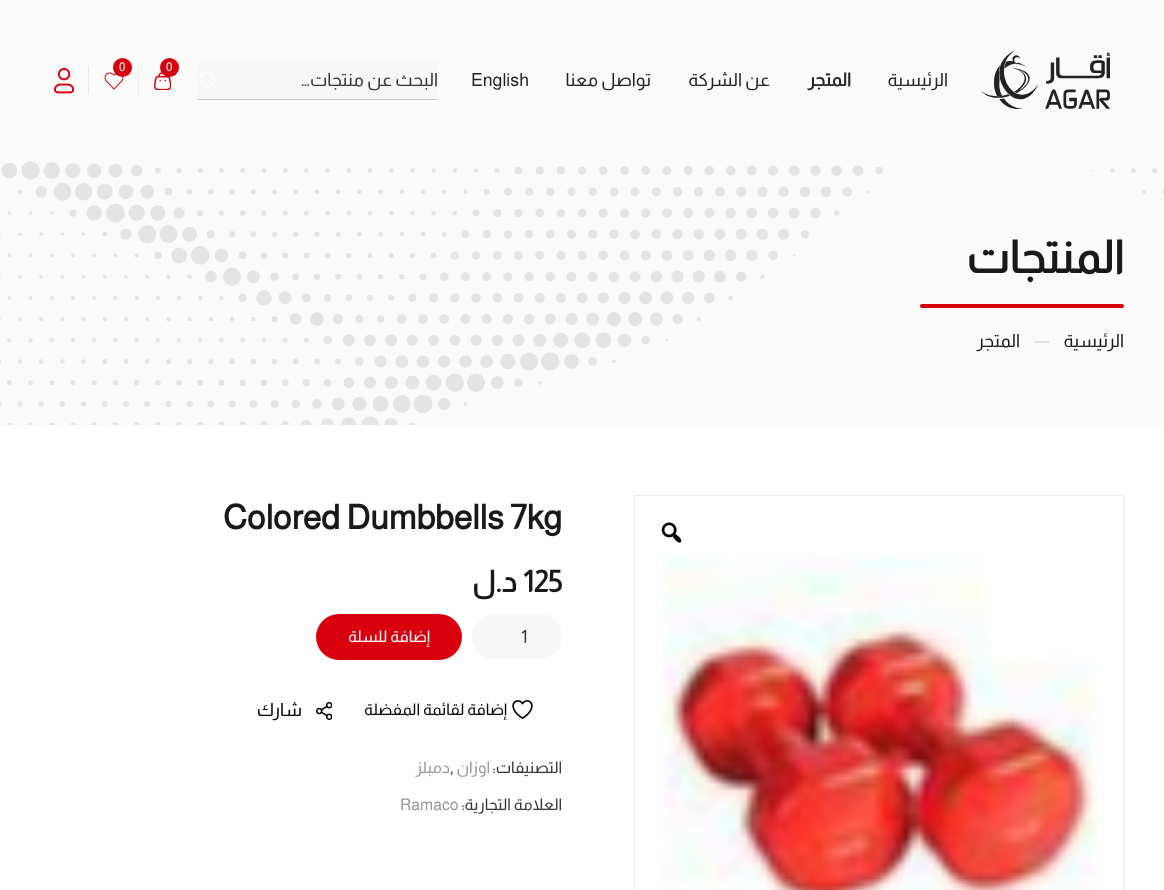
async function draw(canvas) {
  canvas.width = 1164
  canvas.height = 890
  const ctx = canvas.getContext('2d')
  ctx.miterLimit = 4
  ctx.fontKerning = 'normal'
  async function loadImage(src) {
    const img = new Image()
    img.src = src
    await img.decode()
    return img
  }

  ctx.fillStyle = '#fff'
  ctx.fillRect(0, 0, 1164, 890)
  ctx.fillStyle = '#fafafa'
  ctx.fillRect(0, 0, 1164, 425)
  ctx.drawImage(await loadImage('image0.png'), 981, 51, 129, 58)
  ctx.drawImage(await loadImage('image1.png'), 154, 72, 17, 18)
  ctx.fillStyle = '#d9000d'
  ctx.beginPath()
  ctx.arc(169.5, 67.5, 9.5, 0, 2 * Math.PI)
  ctx.fill()
  ctx.font = '12px Almarai'
  ctx.fillStyle = '#fff'
  ctx.fillText('0', 166, 71)
  ctx.fillStyle = '#eaeaea'
  ctx.fillRect(138, 66, 1, 28)
  ctx.drawImage(await loadImage('image2.png'), 104, 72, 20, 18)
  ctx.fillStyle = '#d9000d'
  ctx.beginPath()
  ctx.arc(122.5, 67.5, 9.5, 0, 2 * Math.PI)
  ctx.fill()
  ctx.fillStyle = '#fff'
  ctx.fillText('0', 119, 71)
  ctx.fillStyle = '#eaeaea'
  ctx.fillRect(88, 66, 1, 28)
  ctx.drawImage(await loadImage('image3.png'), 54, 68, 20, 26)
  ctx.direction = 'rtl'
  ctx.font = '18px Almarai'
  ctx.fillStyle = '#222'
  ctx.fillText('الرئيسية', 948, 86)
  ctx.font = 'bold 18px Almarai'
  ctx.fillText('المتجر', 851, 86)
  ctx.font = '18px Almarai'
  ctx.fillText('عن الشركة', 770, 86)
  ctx.fillText('تواصل معنا', 651, 86)
  ctx.direction = 'ltr'
  ctx.fillText('English', 471, 86)
  ctx.fillStyle = '#f7f7f7'
  ctx.fillRect(198, 60, 240, 39)
  ctx.fillStyle = '#c9c9c9'
  ctx.fillRect(198, 99, 240, 1)
  ctx.direction = 'rtl'
  ctx.fillStyle = '#343434'
  ctx.fillText('البحث عن منتجات…', 438, 86)
  ctx.beginPath()
  ctx.arc(207, 79, 7, 0, 2 * Math.PI)
  ctx.strokeStyle = '#fff'
  ctx.lineWidth = 1.1
  ctx.stroke()
  ctx.beginPath()
  ctx.moveTo(212, 84)
  ctx.lineTo(216, 88)
  ctx.closePath()
  ctx.stroke()
  ctx.drawImage(await loadImage('image4.png'), 0, 161, 1164, 264)
  ctx.font = 'bold 45px Almarai'
  ctx.fillStyle = '#191919'
  ctx.fillText('المنتجات', 1124, 273)
  ctx.fillStyle = '#d9000d'
  ctx.beginPath()
  ctx.roundRect(920, 304, 204, 4, 2)
  ctx.fill()
  ctx.font = '18px Almarai'
  ctx.fillStyle = '#191919'
  ctx.fillText('الرئيسية', 1124, 347)
  ctx.fillStyle = '#ddd'
  ctx.fillRect(1035, 341, 14, 2)
  ctx.fillStyle = '#191919'
  ctx.fillText('المتجر', 1020, 347)
  ctx.strokeStyle = '#eaeaea'
  ctx.lineWidth = 1
  ctx.strokeRect(634.5, 495.5, 489, 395)
  ctx.drawImage(await loadImage('image5.png'), 661, 522, 21, 21)
  ctx.drawImage(await loadImage('image6.png'), 660, 553, 439, 337)
  ctx.direction = 'ltr'
  ctx.font = 'bold 34px Almarai'
  ctx.fillText('Colored Dumbbells 7kg', 223, 529)
  ctx.font = 'bold 30px Almarai'
  ctx.fillText('125', 523, 592)
  ctx.direction = 'rtl'
  ctx.fillText('د.ل', 517, 592)
  ctx.fillStyle = '#f7f7f7'
  ctx.beginPath()
  ctx.roundRect(472, 614, 90, 45, 22)
  ctx.fill()
  ctx.direction = 'ltr'
  ctx.font = '18px Almarai'
  ctx.fillStyle = '#343434'
  ctx.fillText('1', 521, 643)
  ctx.fillStyle = '#d9000d'
  ctx.beginPath()
  ctx.roundRect(316, 614, 146, 46, 23)
  ctx.fill()
  ctx.direction = 'rtl'
  ctx.font = '16px Almarai'
  ctx.fillStyle = '#fff'
  ctx.fillText('إضافة للسلة', 430, 642)
  ctx.drawImage(await loadImage('image7.png'), 512, 700, 21, 19)
  ctx.fillStyle = '#000'
  ctx.fillText('إضافة لقائمة المفضلة', 507, 715)
  ctx.drawImage(await loadImage('image8.png'), 316, 702, 16, 18)
  ctx.font = '18px Almarai'
  ctx.fillText('شارك', 302, 716)
  ctx.font = '16px Almarai'
  ctx.fillStyle = '#343434'
  ctx.fillText('التصنيفات:', 562, 773)
  ctx.fillStyle = '#979797'
  ctx.fillText('اوزان', 490, 773)
  ctx.direction = 'ltr'
  ctx.fillStyle = '#343434'
  ctx.fillText(',', 450, 773)
  ctx.direction = 'rtl'
  ctx.fillStyle = '#979797'
  ctx.fillText('دمبلز', 450, 773)
  ctx.fillStyle = '#343434'
  ctx.fillText('العلامة التجارية:', 562, 810)
  ctx.direction = 'ltr'
  ctx.fillStyle = '#979797'
  ctx.fillText('Ramaco', 400, 810)
}

draw(document.querySelector('canvas'))
